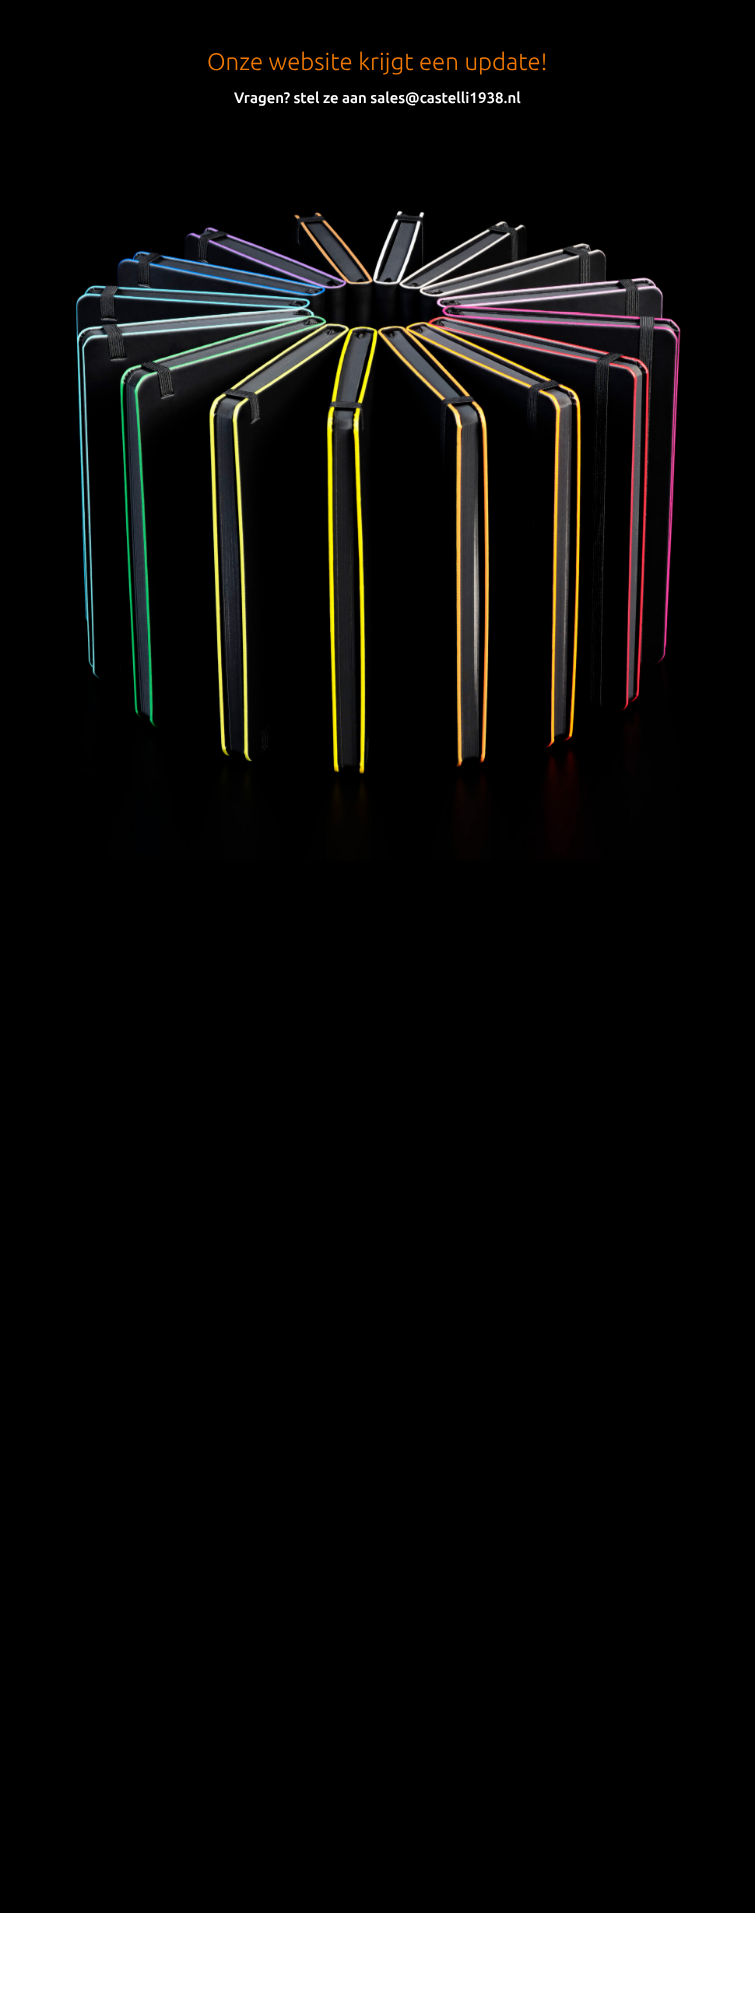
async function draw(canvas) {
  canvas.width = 755
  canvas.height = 1998
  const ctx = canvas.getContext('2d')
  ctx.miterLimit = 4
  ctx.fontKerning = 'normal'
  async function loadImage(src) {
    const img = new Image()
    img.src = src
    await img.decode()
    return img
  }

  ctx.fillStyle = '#fff'
  ctx.fillRect(0, 0, 755, 1998)
  ctx.fillStyle = '#000'
  ctx.fillRect(0, 0, 755, 1913)
  ctx.font = '300 24px Ubuntu'
  ctx.fillStyle = '#ef7900'
  ctx.fillText('Onze website krijgt een update!', 207, 70)
  ctx.font = '500 15px Ubuntu'
  ctx.fillStyle = '#fff'
  ctx.fillText('Vragen? stel ze aan sales@castelli1938.nl', 234, 103)
  ctx.drawImage(await loadImage('image0.png'), 76, 210, 605, 651)
}

draw(document.querySelector('canvas'))
